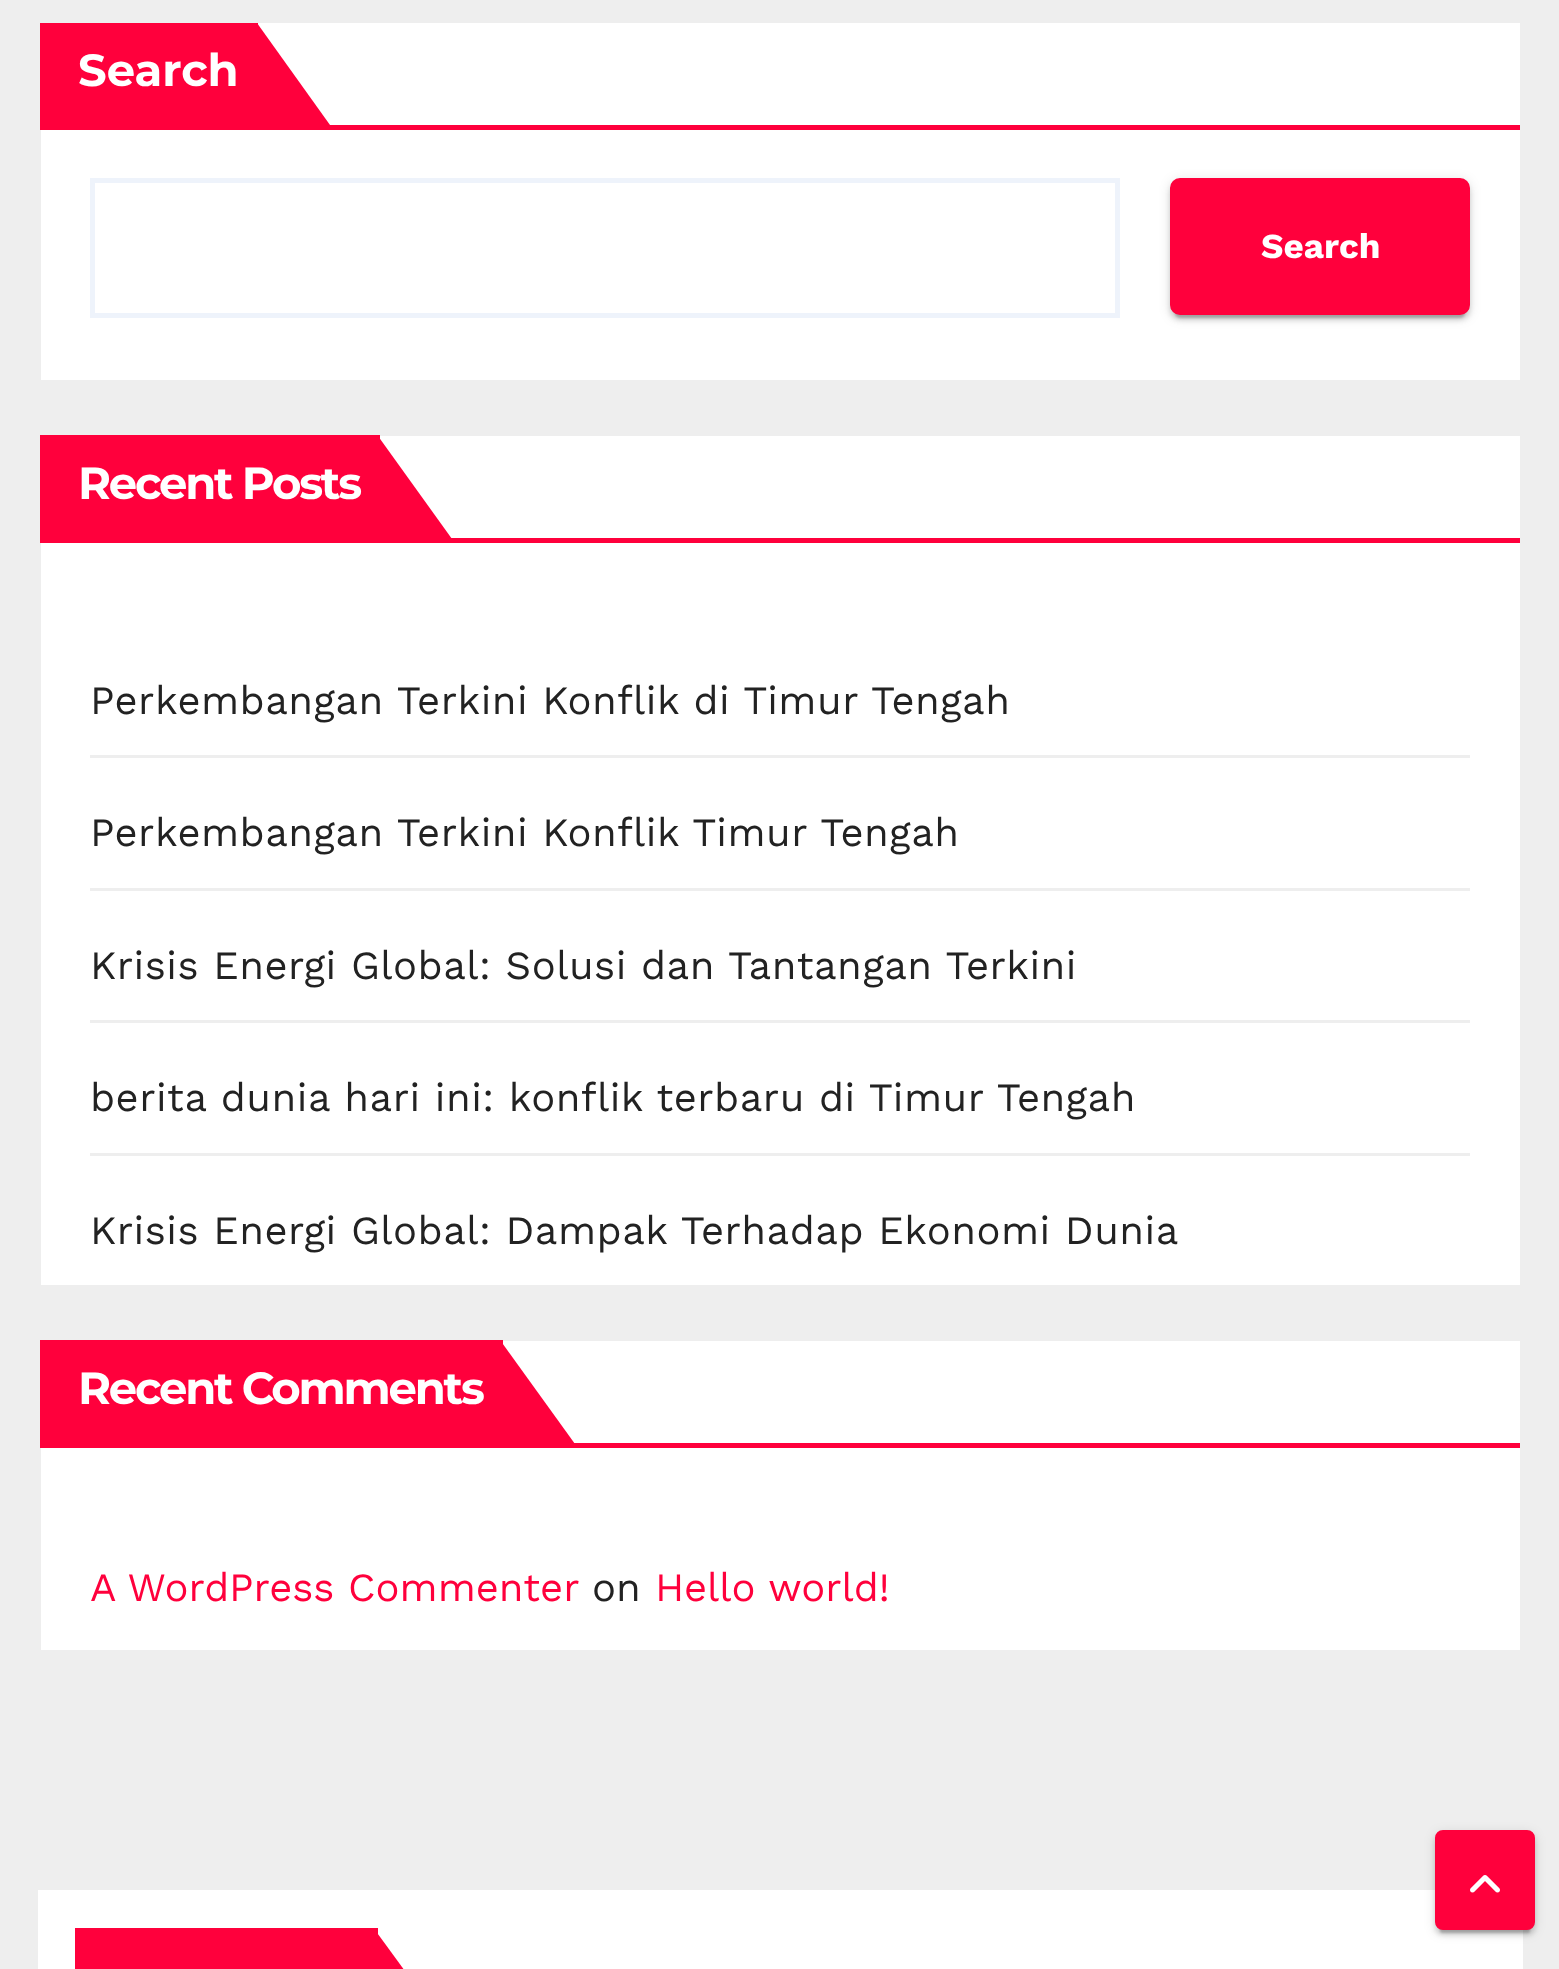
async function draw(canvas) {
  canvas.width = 1559
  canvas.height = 1969
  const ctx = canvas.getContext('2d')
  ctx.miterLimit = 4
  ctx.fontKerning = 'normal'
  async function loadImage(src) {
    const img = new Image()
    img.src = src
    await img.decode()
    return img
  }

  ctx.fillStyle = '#eee'
  ctx.fillRect(0, 0, 1559, 1969)
  ctx.fillStyle = '#fff'
  ctx.fillRect(41, 23, 1479, 357)
  ctx.fillStyle = '#ff003c'
  ctx.fillRect(40, 23, 218, 102)
  ctx.font = 'bold 45px Montserrat'
  ctx.fillStyle = '#fff'
  ctx.fillText('Search', 78, 86)
  ctx.fillStyle = '#ff003c'
  ctx.beginPath()
  ctx.moveTo(257, 23)
  ctx.lineTo(256, 23)
  ctx.lineTo(256, 126)
  ctx.lineTo(330, 126)
  ctx.lineTo(330, 125)
  ctx.closePath()
  ctx.fill()
  ctx.fillRect(40, 125, 1480, 5)
  ctx.strokeStyle = '#eef3fb'
  ctx.lineWidth = 5
  ctx.strokeRect(92.5, 180.5, 1025, 135)
  ctx.fillStyle = '#0000001f'
  ctx.filter = 'blur(6px)'
  ctx.beginPath()
  ctx.roundRect(1170, 180, 300, 138, 10)
  ctx.fill()
  ctx.filter = 'none'
  ctx.fillStyle = '#00000033'
  ctx.filter = 'blur(1px)'
  ctx.beginPath()
  ctx.roundRect(1175, 190, 290, 128, 5)
  ctx.fill()
  ctx.filter = 'none'
  ctx.fillStyle = '#00000024'
  ctx.filter = 'blur(2.5px)'
  ctx.beginPath()
  ctx.roundRect(1170, 183, 300, 137, 10)
  ctx.fill()
  ctx.filter = 'none'
  ctx.fillStyle = '#ff003c'
  ctx.beginPath()
  ctx.roundRect(1171.5, 179.5, 297, 134, 8.5)
  ctx.fill()
  ctx.strokeStyle = '#ff003c'
  ctx.lineWidth = 3
  ctx.stroke()
  ctx.font = 'bold 35px Work Sans'
  ctx.fillStyle = '#fff'
  ctx.fillText('Search', 1261, 258)
  ctx.fillRect(41, 436, 1479, 849)
  ctx.fillStyle = '#ff003c'
  ctx.fillRect(40, 435, 340, 103)
  ctx.letterSpacing = '-2.25px'
  ctx.font = 'bold 45px Montserrat'
  ctx.fillStyle = '#fff'
  ctx.fillText('Recent Posts', 78, 499)
  ctx.fillStyle = '#ff003c'
  ctx.beginPath()
  ctx.moveTo(378, 436)
  ctx.lineTo(378, 539)
  ctx.lineTo(452, 539)
  ctx.closePath()
  ctx.fill()
  ctx.fillRect(40, 538, 1480, 5)
  ctx.fillStyle = '#eee'
  ctx.fillRect(90, 755, 1380, 3)
  ctx.letterSpacing = '0.5px'
  ctx.font = '40px Work Sans'
  ctx.fillStyle = '#222'
  ctx.fillText('Perkembangan Terkini Konflik di Timur Tengah', 90, 714)
  ctx.fillStyle = '#eee'
  ctx.fillRect(90, 888, 1380, 3)
  ctx.fillStyle = '#222'
  ctx.fillText('Perkembangan Terkini Konflik Timur Tengah', 90, 846)
  ctx.fillStyle = '#eee'
  ctx.fillRect(90, 1020, 1380, 3)
  ctx.fillStyle = '#222'
  ctx.fillText('Krisis Energi Global: Solusi dan Tantangan Terkini', 90, 979)
  ctx.fillStyle = '#eee'
  ctx.fillRect(90, 1153, 1380, 3)
  ctx.fillStyle = '#222'
  ctx.fillText('berita dunia hari ini: konflik terbaru di Timur Tengah', 90, 1111)
  ctx.fillText('Krisis Energi Global: Dampak Terhadap Ekonomi Dunia', 90, 1244)
  ctx.fillStyle = '#fff'
  ctx.fillRect(41, 1341, 1479, 309)
  ctx.fillStyle = '#ff003c'
  ctx.fillRect(40, 1340, 463, 103)
  ctx.letterSpacing = '-2.25px'
  ctx.font = 'bold 45px Montserrat'
  ctx.fillStyle = '#fff'
  ctx.fillText('Recent Comments', 78, 1404)
  ctx.fillStyle = '#ff003c'
  ctx.beginPath()
  ctx.moveTo(500, 1340)
  ctx.lineTo(500, 1444)
  ctx.lineTo(575, 1444)
  ctx.closePath()
  ctx.fill()
  ctx.fillRect(40, 1443, 1480, 5)
  ctx.letterSpacing = '0px'
  ctx.font = '40px Work Sans'
  ctx.fillText('A WordPress Commenter', 90, 1601)
  ctx.fillStyle = '#222'
  ctx.fillText('on', 592, 1601)
  ctx.fillStyle = '#ff003c'
  ctx.fillText('Hello world!', 655, 1601)
  ctx.fillStyle = '#fff'
  ctx.fillRect(38, 1890, 1485, 79)
  ctx.fillStyle = '#ff003c'
  ctx.fillRect(75, 1928, 303, 41)
  ctx.beginPath()
  ctx.moveTo(448, 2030)
  ctx.lineTo(375, 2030)
  ctx.lineTo(375, 1930)
  ctx.closePath()
  ctx.fill()
  ctx.fillStyle = '#0000001f'
  ctx.filter = 'blur(6px)'
  ctx.beginPath()
  ctx.roundRect(1435, 1833, 100, 100, 8)
  ctx.fill()
  ctx.filter = 'none'
  ctx.fillStyle = '#00000033'
  ctx.filter = 'blur(1px)'
  ctx.beginPath()
  ctx.roundRect(1440, 1843, 90, 90, 2.5)
  ctx.fill()
  ctx.filter = 'none'
  ctx.fillStyle = '#00000024'
  ctx.filter = 'blur(2.5px)'
  ctx.beginPath()
  ctx.roundRect(1435, 1835, 100, 100, 8)
  ctx.fill()
  ctx.filter = 'none'
  ctx.fillStyle = '#ff003c'
  ctx.beginPath()
  ctx.roundRect(1437.5, 1832.5, 95, 95, 5.5)
  ctx.fill()
  ctx.lineWidth = 5
  ctx.stroke()
  ctx.drawImage(await loadImage('image0.png'), 1470, 1875, 30, 18)
}

draw(document.querySelector('canvas'))
